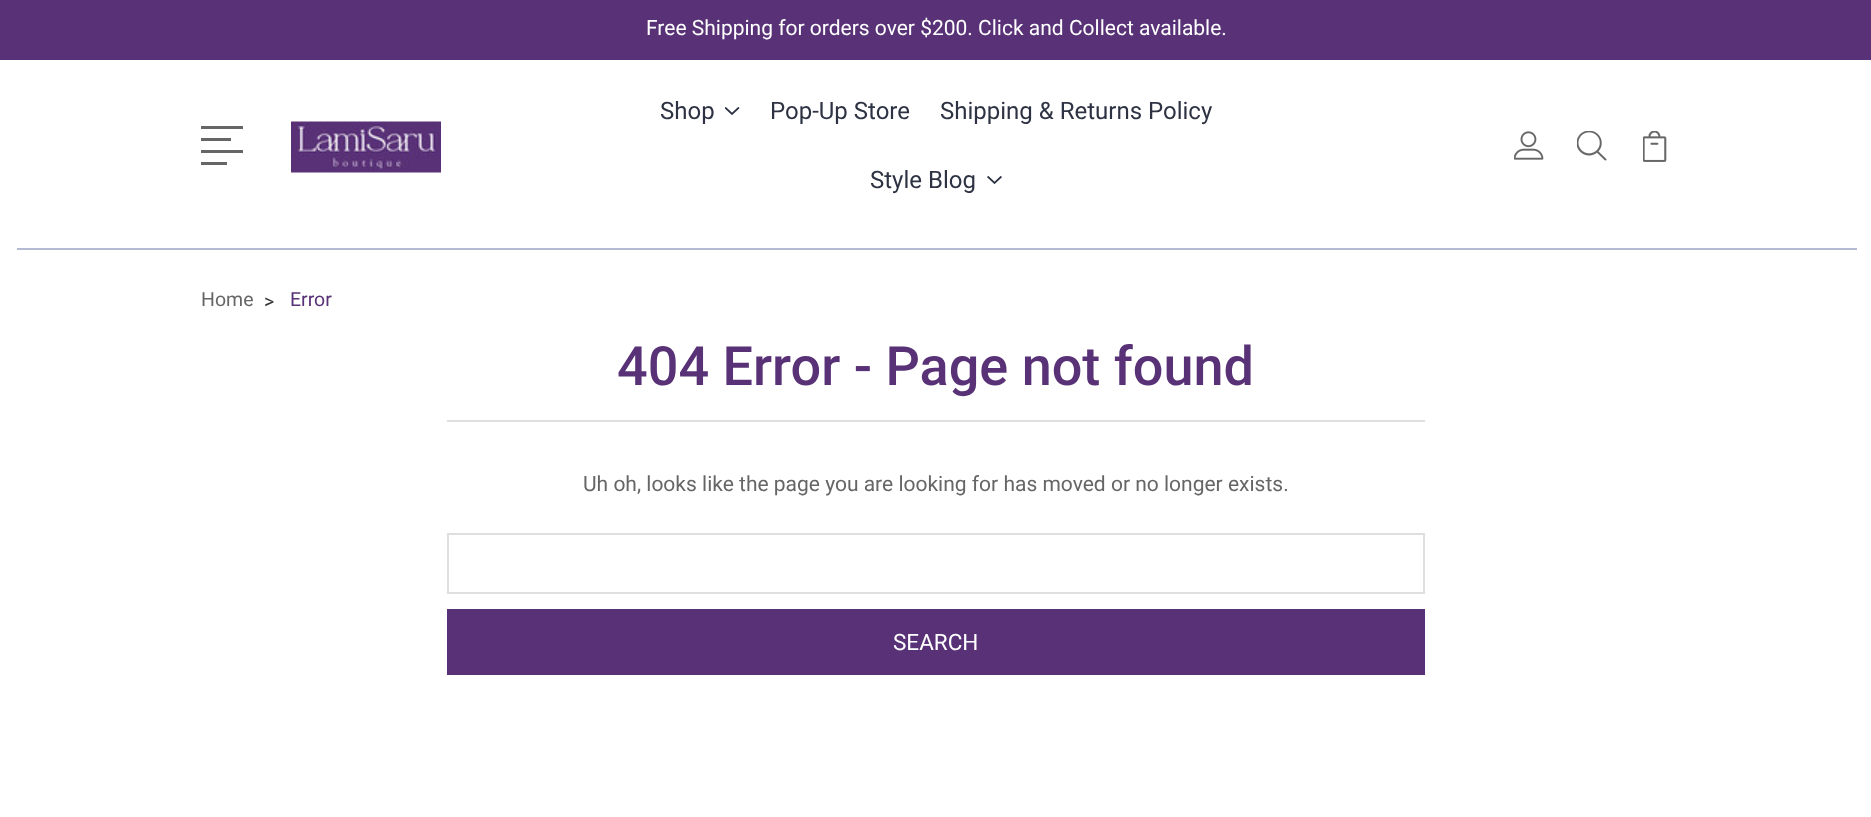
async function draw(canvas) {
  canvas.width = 1871
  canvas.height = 817
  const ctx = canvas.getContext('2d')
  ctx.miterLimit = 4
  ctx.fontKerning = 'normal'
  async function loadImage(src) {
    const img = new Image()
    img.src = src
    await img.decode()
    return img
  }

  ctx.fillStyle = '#fff'
  ctx.fillRect(0, 0, 1871, 817)
  ctx.fillStyle = '#583176'
  ctx.fillRect(0, 0, 1871, 60)
  ctx.font = '21px Roboto'
  ctx.fillStyle = '#fff'
  ctx.fillText('Free Shipping for orders over $200. Click and Collect available.', 646, 35)
  ctx.fillStyle = '#666'
  ctx.fillRect(201, 126, 42, 3)
  ctx.fillRect(201, 138, 30, 3)
  ctx.fillRect(201, 150, 42, 3)
  ctx.fillRect(201, 162, 26, 3)
  ctx.drawImage(await loadImage('image0.png'), 291, 121, 150, 52)
  ctx.font = '24px Roboto'
  ctx.fillStyle = '#2e3344'
  ctx.fillText('Shop', 660, 119)
  ctx.drawImage(await loadImage('image1.png'), 725, 107, 15, 8)
  ctx.fillText('Pop-Up Store', 770, 119)
  ctx.fillText('Shipping & Returns Policy', 940, 119)
  ctx.fillText('Style Blog', 870, 188)
  ctx.drawImage(await loadImage('image2.png'), 987, 176, 15, 9)
  ctx.drawImage(await loadImage('image3.png'), 1514, 131, 30, 29)
  ctx.drawImage(await loadImage('image4.png'), 1577, 131, 30, 30)
  ctx.drawImage(await loadImage('image5.png'), 1643, 131, 24, 31)
  ctx.fillStyle = '#b4bad1'
  ctx.fillRect(17, 248, 1840, 2)
  ctx.font = '19.5px Roboto'
  ctx.fillStyle = '#666'
  ctx.fillText('Home', 201, 306)
  ctx.fillStyle = '#333'
  ctx.fillText('>', 264, 308)
  ctx.fillStyle = '#583176'
  ctx.fillText('Error', 290, 306)
  ctx.fillStyle = '#dfdfdf'
  ctx.fillRect(447, 420, 978, 2)
  ctx.font = '500 54px Roboto'
  ctx.fillStyle = '#583176'
  ctx.fillText('404 Error - Page not found', 617, 385)
  ctx.font = '21px Roboto'
  ctx.fillStyle = '#666'
  ctx.fillText('Uh oh, looks like the page you are looking for has moved or no longer exists.', 583, 491)
  ctx.strokeStyle = '#dfdfdf'
  ctx.lineWidth = 2
  ctx.strokeRect(448, 534, 976, 59)
  ctx.fillStyle = '#583176'
  ctx.fillRect(447, 609, 978, 66)
  ctx.font = '22.5px Roboto'
  ctx.fillStyle = '#fff'
  ctx.fillText('SEARCH', 893, 650)
}

draw(document.querySelector('canvas'))
